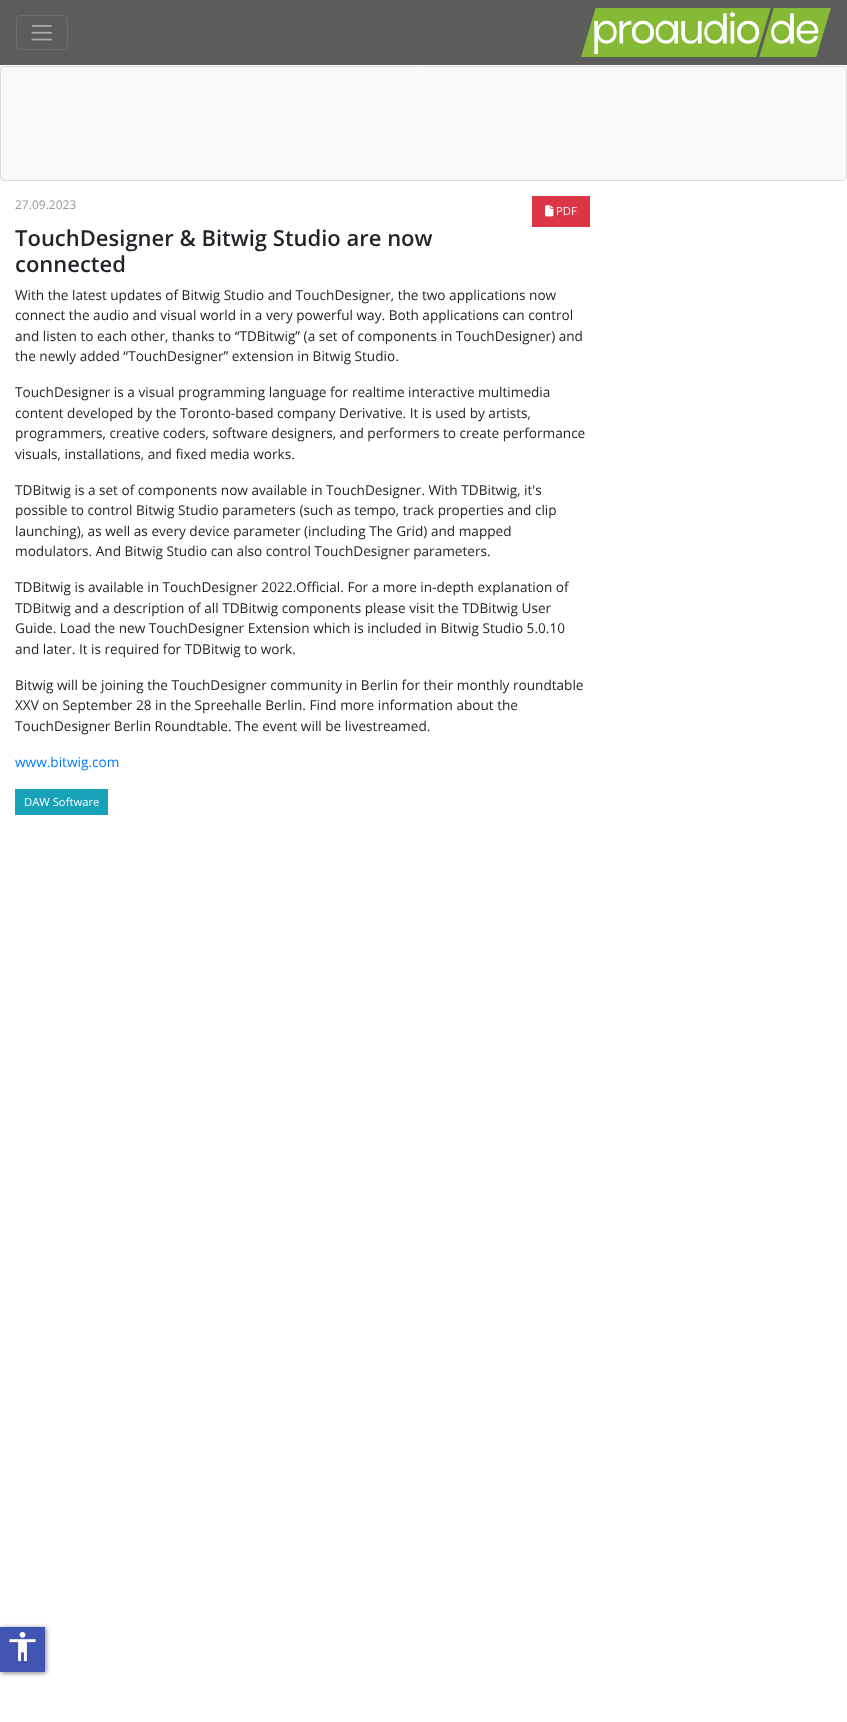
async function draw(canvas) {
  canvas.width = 847
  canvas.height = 1722
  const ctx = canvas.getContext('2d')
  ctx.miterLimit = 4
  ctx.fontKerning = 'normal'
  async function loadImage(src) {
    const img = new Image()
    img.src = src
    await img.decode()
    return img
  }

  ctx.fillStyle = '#fff'
  ctx.fillRect(0, 0, 847, 1722)
  ctx.fillStyle = '#5c5c5c'
  ctx.fillRect(0, 0, 847, 65)
  ctx.beginPath()
  ctx.roundRect(16.5, 15.5, 51, 34, 3.5)
  ctx.strokeStyle = '#6c6c6c'
  ctx.stroke()
  ctx.drawImage(await loadImage('image0.png'), 31, 25, 21, 16)
  ctx.drawImage(await loadImage('image1.png'), 581, 8, 250, 49)
  ctx.fillStyle = '#f8f9fa'
  ctx.beginPath()
  ctx.roundRect(0.5, 66.5, 846, 114, 3.5)
  ctx.fill()
  ctx.strokeStyle = '#d9dadb'
  ctx.stroke()
  ctx.font = '12px Open Sans'
  ctx.fillStyle = '#999'
  ctx.fillText('27.09.2023', 15, 209)
  ctx.fillStyle = '#dc3545'
  ctx.fillRect(532, 196, 58, 31)
  ctx.drawImage(await loadImage('image2.png'), 545, 205, 9, 12)
  ctx.font = '11.25px Open Sans'
  ctx.fillStyle = '#fff'
  ctx.fillText('PDF', 556, 215)
  ctx.font = '600 22px Open Sans'
  ctx.fillStyle = '#212529'
  ctx.fillText('TouchDesigner & Bitwig Studio are now', 15, 246)
  ctx.fillText('connected', 15, 272)
  ctx.font = '13.6px Open Sans'
  ctx.fillText('With the latest updates of Bitwig Studio and TouchDesigner, the two applications now', 15, 300)
  ctx.fillText('connect the audio and visual world in a very powerful way. Both applications can control', 15, 320)
  ctx.fillText('and listen to each other, thanks to “TDBitwig” (a set of components in TouchDesigner) and', 15, 341)
  ctx.fillText('the newly added “TouchDesigner” extension in Bitwig Studio.', 15, 361)
  ctx.fillText('TouchDesigner is a visual programming language for realtime interactive multimedia', 15, 397)
  ctx.fillText('content developed by the Toronto-based company Derivative. It is used by artists,', 15, 418)
  ctx.fillText('programmers, creative coders, software designers, and performers to create performance', 15, 438)
  ctx.fillText('visuals, installations, and fixed media works.', 15, 459)
  ctx.fillText('TDBitwig is a set of components now available in TouchDesigner. With TDBitwig, it\'s', 15, 495)
  ctx.fillText('possible to control Bitwig Studio parameters (such as tempo, track properties and clip', 15, 515)
  ctx.fillText('launching), as well as every device parameter (including The Grid) and mapped', 15, 536)
  ctx.fillText('modulators. And Bitwig Studio can also control TouchDesigner parameters.', 15, 556)
  ctx.fillText('TDBitwig is available in TouchDesigner 2022.Official. For a more in-depth explanation of', 15, 592)
  ctx.fillText('TDBitwig and a description of all TDBitwig components please visit the TDBitwig User', 15, 613)
  ctx.fillText('Guide. Load the new TouchDesigner Extension which is included in Bitwig Studio 5.0.10', 15, 633)
  ctx.fillText('and later. It is required for TDBitwig to work.', 15, 654)
  ctx.fillText('Bitwig will be joining the TouchDesigner community in Berlin for their monthly roundtable', 15, 690)
  ctx.fillText('XXV on September 28 in the Spreehalle Berlin. Find more information about the', 15, 710)
  ctx.fillText('TouchDesigner Berlin Roundtable. The event will be livestreamed.', 15, 731)
  ctx.fillStyle = '#007bff'
  ctx.fillText('www.bitwig.com', 15, 767)
  ctx.fillStyle = '#17a2b8'
  ctx.fillRect(15, 789, 93, 26)
  ctx.font = '11.25px Open Sans'
  ctx.fillStyle = '#fff'
  ctx.fillText('DAW Software', 24, 806)
  ctx.fillStyle = '#00000080'
  ctx.filter = 'blur(2.5px)'
  ctx.beginPath()
  ctx.rect(1, 1628, 45, 45)
  ctx.fill()
  ctx.filter = 'none'
  ctx.fillStyle = '#4054b2'
  ctx.fillRect(0, 1627, 45, 45)
  ctx.drawImage(await loadImage('image3.png'), 9, 1632, 27, 30)
}

draw(document.querySelector('canvas'))
